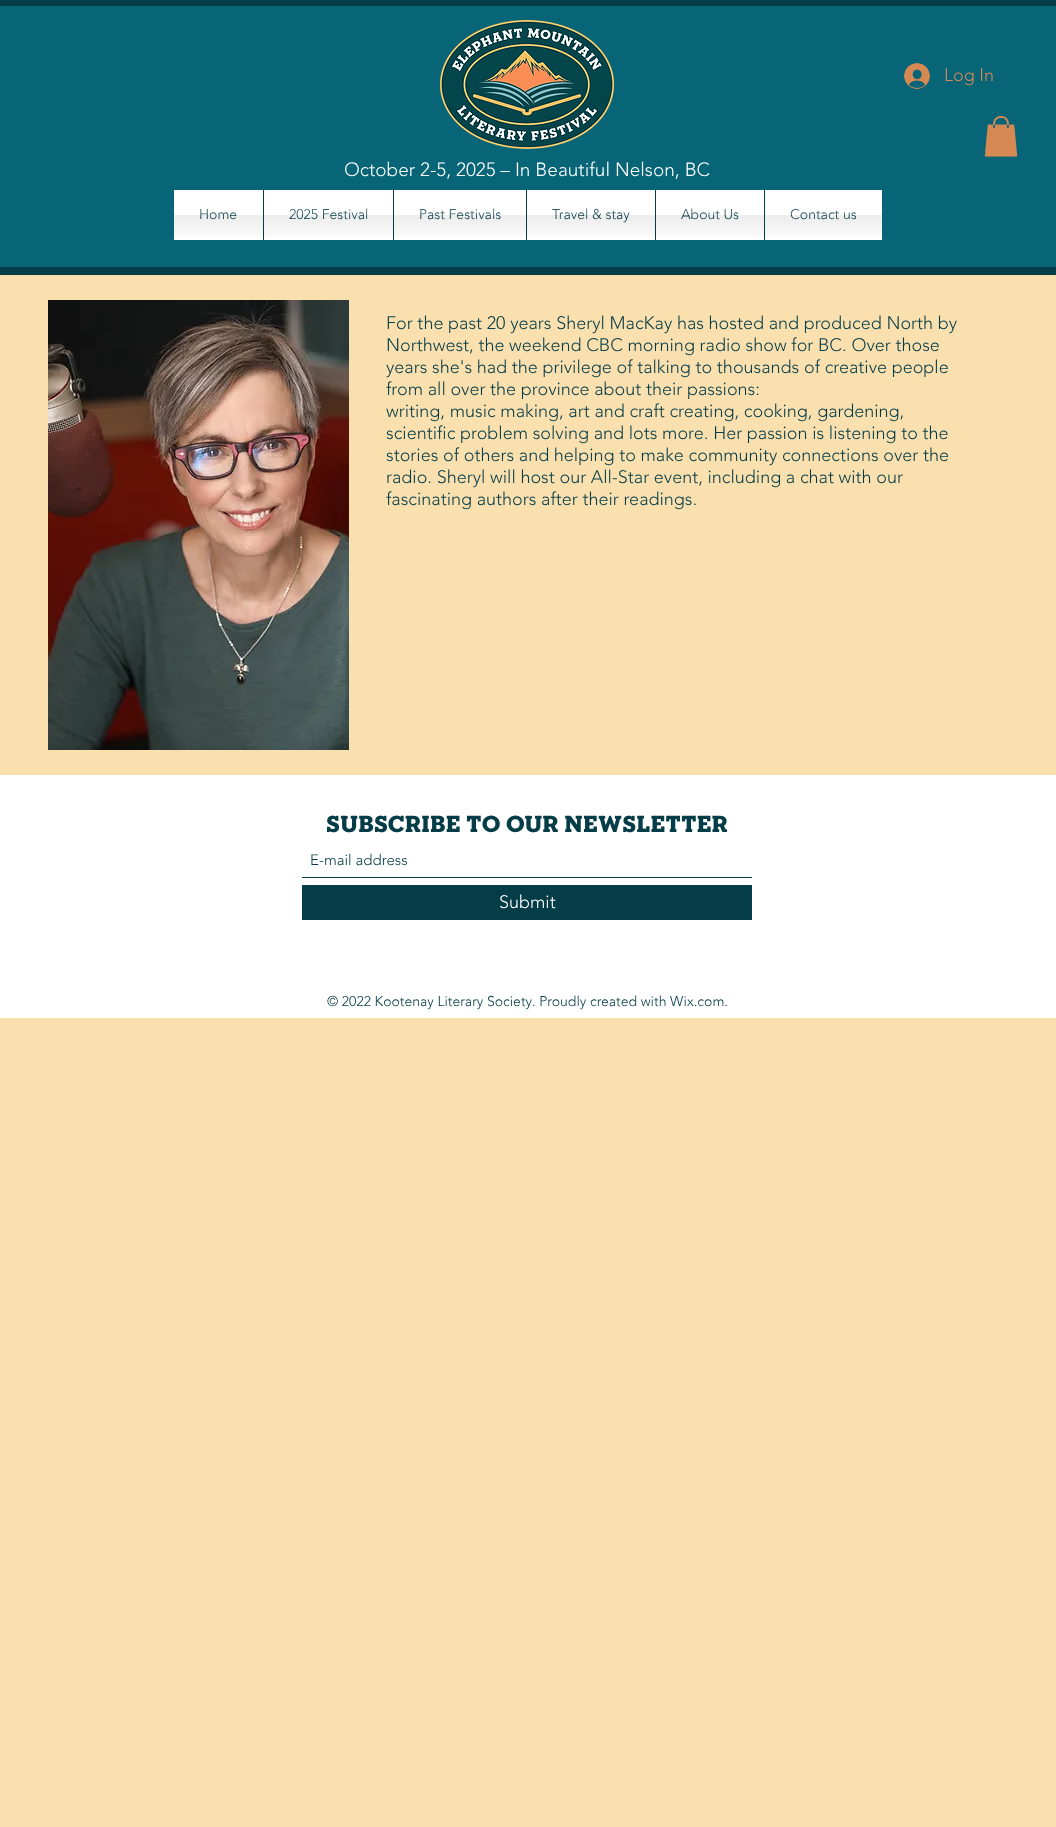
async function draw(canvas) {
  canvas.width = 1056
  canvas.height = 1827
  const ctx = canvas.getContext('2d')
  ctx.miterLimit = 4
  ctx.fontKerning = 'normal'
  async function loadImage(src) {
    const img = new Image()
    img.src = src
    await img.decode()
    return img
  }

  ctx.fillStyle = '#fadfaf'
  ctx.fillRect(0, 0, 1056, 1827)
  ctx.fillStyle = '#043c47'
  ctx.fillRect(0, 0, 1056, 275)
  ctx.fillStyle = '#076577'
  ctx.fillRect(0, 6, 1056, 261)
  ctx.drawImage(await loadImage('image0.png'), 904, 63, 26, 26)
  ctx.font = '300 18px "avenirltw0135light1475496"'
  ctx.fillStyle = '#d78954'
  ctx.fillText('Log In', 944, 81)
  ctx.drawImage(await loadImage('image1.png'), 984, 116, 34, 41)
  ctx.drawImage(await loadImage('image2.png'), 440, 20, 174, 129)
  ctx.font = '300 19px "avenirltw0135light1475496"'
  ctx.fillStyle = '#fff'
  ctx.fillText('October 2-5, 2025 – In Beautiful Nelson, BC', 344, 176)
  ctx.fillRect(174, 190, 89, 50)
  ctx.font = '300 14px "avenirltw0135light1475496"'
  ctx.fillStyle = '#043c47'
  ctx.fillText('Home', 199, 219)
  ctx.drawImage(await loadImage('image3.png'), 174, 209, 89, 27)
  ctx.fillStyle = '#fff'
  ctx.fillRect(264, 190, 129, 50)
  ctx.fillStyle = '#043c47'
  ctx.fillRect(263, 190, 1, 50)
  ctx.fillText('2025 Festival', 289, 219)
  ctx.drawImage(await loadImage('image4.png'), 264, 208, 129, 28)
  ctx.fillStyle = '#fff'
  ctx.fillRect(394, 190, 132, 50)
  ctx.fillStyle = '#043c47'
  ctx.fillRect(393, 190, 1, 50)
  ctx.fillText('Past Festivals', 419, 219)
  ctx.drawImage(await loadImage('image5.png'), 394, 208, 132, 28)
  ctx.fillStyle = '#fff'
  ctx.fillRect(527, 190, 128, 50)
  ctx.fillStyle = '#043c47'
  ctx.fillRect(526, 190, 1, 50)
  ctx.fillText('Travel & stay', 552, 219)
  ctx.drawImage(await loadImage('image6.png'), 527, 208, 128, 28)
  ctx.fillStyle = '#fff'
  ctx.fillRect(656, 190, 108, 50)
  ctx.fillStyle = '#043c47'
  ctx.fillRect(655, 190, 1, 50)
  ctx.fillText('About Us', 681, 219)
  ctx.drawImage(await loadImage('image7.png'), 656, 208, 108, 28)
  ctx.fillStyle = '#fff'
  ctx.fillRect(765, 190, 117, 50)
  ctx.fillStyle = '#043c47'
  ctx.fillRect(764, 190, 1, 50)
  ctx.fillText('Contact us', 790, 219)
  ctx.drawImage(await loadImage('image8.png'), 765, 208, 117, 28)
  ctx.drawImage(await loadImage('image9.png'), 48, 300, 301, 450)
  ctx.font = '300 18px "avenirltw0135light1475496"'
  ctx.fillText('For the past 20 years Sheryl MacKay has hosted and produced North by', 386, 329)
  ctx.fillText('Northwest, the weekend CBC morning radio show for BC. Over those', 386, 351)
  ctx.fillText('years she\'s had the privilege of talking to thousands of creative people', 386, 373)
  ctx.fillText('from all over the province about their passions:', 386, 395)
  ctx.fillText('writing, music making, art and craft creating, cooking, gardening,', 386, 417)
  ctx.fillText('scientific problem solving and lots more. Her passion is listening to the', 386, 439)
  ctx.fillText('stories of others and helping to make community connections over the', 386, 461)
  ctx.fillText('radio. Sheryl will host our All-Star event, including a chat with our', 386, 483)
  ctx.fillText('fascinating authors after their readings.', 386, 505)
  ctx.fillStyle = '#fff'
  ctx.fillRect(0, 775, 1056, 243)
  ctx.font = '900 22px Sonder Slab'
  ctx.fillStyle = '#043c47'
  ctx.fillText('Subscribe to our newsletter', 326, 832)
  ctx.fillRect(302, 877, 450, 1)
  ctx.font = '300 15px "avenirltw0135light1475496"'
  ctx.fillText('E-mail address', 310, 865)
  ctx.fillRect(302, 885, 450, 35)
  ctx.font = '300 18px "avenirltw0135light1475496"'
  ctx.fillStyle = '#fff'
  ctx.fillText('Submit', 499, 908)
  ctx.font = '300 14px "avenirltw0135light1475496"'
  ctx.fillStyle = '#043c47'
  ctx.fillText('© 2022 Kootenay Literary Society. Proudly created with Wix.com.', 327, 1006)
}

draw(document.querySelector('canvas'))
